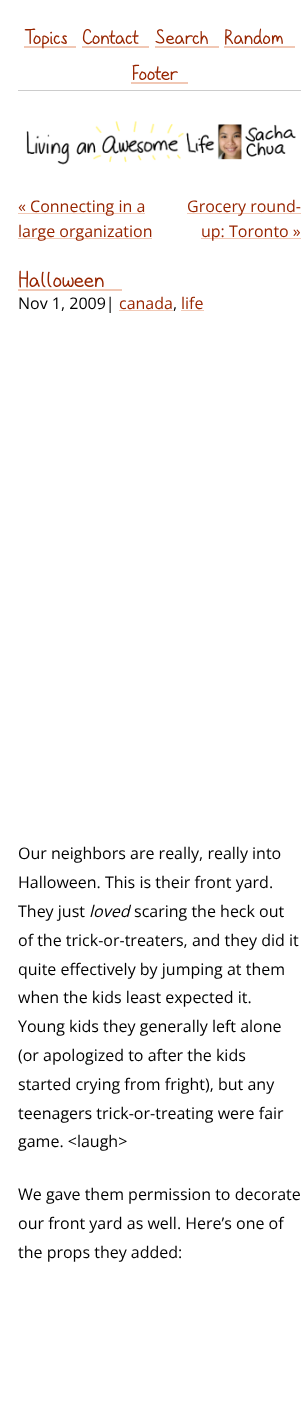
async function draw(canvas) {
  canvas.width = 303
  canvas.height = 1411
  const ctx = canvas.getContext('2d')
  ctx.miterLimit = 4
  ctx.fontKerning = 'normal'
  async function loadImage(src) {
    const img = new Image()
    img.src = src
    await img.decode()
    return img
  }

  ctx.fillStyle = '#fff'
  ctx.fillRect(0, 0, 303, 1411)
  ctx.fillStyle = '#ccc'
  ctx.fillRect(18, 90, 283, 1)
  ctx.fillStyle = '#f1c8b5'
  ctx.fillRect(24, 46, 52, 2)
  ctx.font = '22.5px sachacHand'
  ctx.fillStyle = '#972500'
  ctx.fillText('Topics', 24, 44)
  ctx.fillText('Contact', 82, 44)
  ctx.fillStyle = '#f1c8b5'
  ctx.fillRect(82, 46, 67, 2)
  ctx.fillStyle = '#972500'
  ctx.fillText('Search', 155, 44)
  ctx.fillStyle = '#f1c8b5'
  ctx.fillRect(155, 46, 64, 2)
  ctx.fillStyle = '#972500'
  ctx.fillText('Random', 224, 44)
  ctx.fillStyle = '#f1c8b5'
  ctx.fillRect(224, 46, 71, 2)
  ctx.fillStyle = '#972500'
  ctx.fillText('Footer', 131, 80)
  ctx.fillStyle = '#f1c8b5'
  ctx.fillRect(131, 82, 57, 2)
  ctx.drawImage(await loadImage('image0.png'), 26, 121, 270, 44)
  ctx.fillRect(18, 213, 127, 1)
  ctx.font = '16px Open Sans'
  ctx.fillStyle = '#972500'
  ctx.fillText('« Connecting in a', 18, 212)
  ctx.fillStyle = '#f1c8b5'
  ctx.fillRect(18, 238, 134, 1)
  ctx.fillStyle = '#972500'
  ctx.fillText('large organization', 18, 237)
  ctx.fillStyle = '#f1c8b5'
  ctx.fillRect(187, 213, 114, 1)
  ctx.fillStyle = '#972500'
  ctx.fillText('Grocery round-', 187, 212)
  ctx.fillStyle = '#f1c8b5'
  ctx.fillRect(201, 238, 100, 1)
  ctx.fillStyle = '#972500'
  ctx.fillText('up: Toronto »', 201, 237)
  ctx.font = '25px sachacHand'
  ctx.fillText('Halloween', 18, 287)
  ctx.fillStyle = '#f1c8b5'
  ctx.fillRect(18, 289, 104, 2)
  ctx.font = '16px Open Sans'
  ctx.fillStyle = '#000'
  ctx.fillText('Nov 1, 2009|', 18, 309)
  ctx.fillStyle = '#972500'
  ctx.fillText('canada', 119, 309)
  ctx.fillStyle = '#000'
  ctx.fillText(',', 173, 309)
  ctx.fillStyle = '#f1c8b5'
  ctx.fillRect(119, 310, 54, 1)
  ctx.fillRect(181, 310, 23, 1)
  ctx.fillStyle = '#972500'
  ctx.fillText('life', 181, 309)
  ctx.fillStyle = '#000'
  ctx.fillText('Our neighbors are really, really into', 18, 859)
  ctx.fillText('Halloween. This is their front yard.', 18, 888)
  ctx.fillText('They just', 18, 917)
  ctx.font = 'italic 16px Open Sans'
  ctx.fillText('loved', 89, 917)
  ctx.font = '16px Open Sans'
  ctx.fillText('scaring the heck out', 134, 917)
  ctx.fillText('of the trick-or-treaters, and they did it', 18, 946)
  ctx.fillText('quite effectively by jumping at them', 18, 975)
  ctx.fillText('when the kids least expected it.', 18, 1003)
  ctx.fillText('Young kids they generally left alone', 18, 1032)
  ctx.fillText('(or apologized to after the kids', 18, 1061)
  ctx.fillText('started crying from fright), but any', 18, 1090)
  ctx.fillText('teenagers trick-or-treating were fair', 18, 1119)
  ctx.fillText('game. <laugh>', 18, 1147)
  ctx.fillText('We gave them permission to decorate', 18, 1200)
  ctx.fillText('our front yard as well. Here’s one of', 18, 1229)
  ctx.fillText('the props they added:', 18, 1258)
}

draw(document.querySelector('canvas'))
